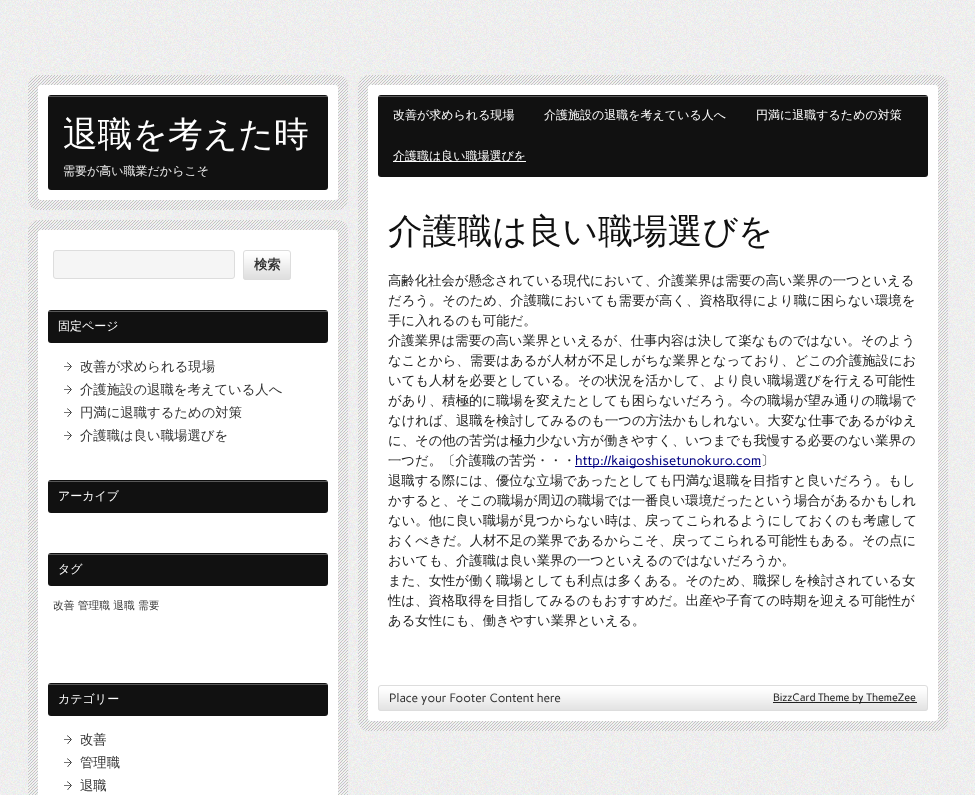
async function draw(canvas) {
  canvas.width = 975
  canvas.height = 795
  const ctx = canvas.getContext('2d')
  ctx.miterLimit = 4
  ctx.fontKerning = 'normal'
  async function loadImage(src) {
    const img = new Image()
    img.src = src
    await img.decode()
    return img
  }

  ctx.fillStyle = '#fff'
  ctx.fillRect(0, 0, 975, 795)
  ctx.drawImage(await loadImage('image0.png'), 0, 0, 975, 795)
  ctx.drawImage(await loadImage('image1.png'), 28, 75, 320, 135)
  ctx.beginPath()
  ctx.roundRect(38, 85, 300, 115, 3)
  ctx.fill()
  ctx.fillStyle = '#111'
  ctx.beginPath()
  ctx.roundRect(48, 95, 280, 95, 3)
  ctx.fill()
  ctx.drawImage(await loadImage('image2.png'), 48, 96, 280, 1)
  ctx.font = '500 34.75px WenQuanYi Zen Hei'
  ctx.fillStyle = '#fff'
  ctx.fillText('退職を考えた時', 63, 146)
  ctx.font = '500 12px WenQuanYi Zen Hei'
  ctx.fillStyle = '#eee'
  ctx.fillText('需要が高い職業だからこそ', 63, 175)
  ctx.drawImage(await loadImage('image3.png'), 358, 75, 590, 656)
  ctx.fillStyle = '#fff'
  ctx.beginPath()
  ctx.roundRect(368, 85, 570, 636, 3)
  ctx.fill()
  ctx.fillStyle = '#111'
  ctx.beginPath()
  ctx.roundRect(378, 95, 550, 82, 3)
  ctx.fill()
  ctx.drawImage(await loadImage('image4.png'), 378, 96, 550, 1)
  ctx.fillStyle = '#fff'
  ctx.fillText('改善が求められる現場', 393, 119)
  ctx.fillText('介護施設の退職を考えている人へ', 544, 119)
  ctx.fillText('円満に退職するための対策', 756, 119)
  ctx.fillRect(393, 161, 133, 1)
  ctx.fillText('介護職は良い職場選びを', 393, 160)
  ctx.font = '500 34.75px WenQuanYi Zen Hei'
  ctx.fillStyle = '#111'
  ctx.fillText('介護職は良い職場選びを', 388, 243)
  ctx.font = '500 13.35px WenQuanYi Zen Hei'
  ctx.fillStyle = '#222'
  ctx.fillText('高齢化社会が懸念されている現代において、介護業界は需要の高い業界の一つといえる', 388, 285)
  ctx.fillText('だろう。そのため、介護職においても需要が高く、資格取得により職に困らない環境を', 388, 305)
  ctx.fillText('手に入れるのも可能だ。', 388, 325)
  ctx.fillText('介護業界は需要の高い業界といえるが、仕事内容は決して楽なものではない。そのよう', 388, 345)
  ctx.fillText('なことから、需要はあるが人材が不足しがちな業界となっており、どこの介護施設にお', 388, 365)
  ctx.fillText('いても人材を必要としている。その状況を活かして、より良い職場選びを行える可能性', 388, 385)
  ctx.fillText('があり、積極的に職場を変えたとしても困らないだろう。今の職場が望み通りの職場で', 388, 405)
  ctx.fillText('なければ、退職を検討してみるのも一つの方法かもしれない。大変な仕事であるがゆえ', 388, 425)
  ctx.fillText('に、その他の苦労は極力少ない方が働きやすく、いつまでも我慢する必要のない業界の', 388, 445)
  ctx.fillText('一つだ。〔介護職の苦労・・・', 388, 465)
  ctx.fillStyle = '#000080'
  ctx.fillRect(575, 466, 186, 1)
  ctx.font = '13.35px Carme'
  ctx.fillText('http://kaigoshisetunokuro.com', 575, 465)
  ctx.font = '500 13.35px WenQuanYi Zen Hei'
  ctx.fillStyle = '#222'
  ctx.fillText('〕', 761, 465)
  ctx.fillText('退職する際には、優位な立場であったとしても円満な退職を目指すと良いだろう。もし', 388, 485)
  ctx.fillText('かすると、そこの職場が周辺の職場では一番良い環境だったという場合があるかもしれ', 388, 505)
  ctx.fillText('ない。他に良い職場が見つからない時は、戻ってこられるようにしておくのも考慮して', 388, 525)
  ctx.fillText('おくべきだ。人材不足の業界であるからこそ、戻ってこられる可能性もある。その点に', 388, 545)
  ctx.fillText('おいても、介護職は良い業界の一つといえるのではないだろうか。', 388, 565)
  ctx.fillText('また、女性が働く職場としても利点は多くある。そのため、職探しを検討されている女', 388, 585)
  ctx.fillText('性は、資格取得を目指してみるのもおすすめだ。出産や子育ての時期を迎える可能性が', 388, 605)
  ctx.fillText('ある女性にも、働きやすい業界といえる。', 388, 625)
  ctx.drawImage(await loadImage('image5.png'), 378, 686, 550, 25)
  ctx.beginPath()
  ctx.roundRect(378.5, 685.5, 549, 25, 2.5)
  ctx.strokeStyle = '#ddd'
  ctx.stroke()
  ctx.font = '12px Carme'
  ctx.fillStyle = '#333'
  ctx.fillText('Place your Footer Content here', 389, 702)
  ctx.fillStyle = '#222'
  ctx.fillRect(773, 702, 144, 1)
  ctx.font = '10.75px Carme'
  ctx.fillText('BizzCard Theme by ThemeZee', 773, 701)
  ctx.drawImage(await loadImage('image6.png'), 28, 220, 320, 575)
  ctx.fillStyle = '#fff'
  ctx.beginPath()
  ctx.roundRect(38, 230, 300, 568, 3)
  ctx.fill()
  ctx.fillStyle = '#f5f5f5'
  ctx.beginPath()
  ctx.roundRect(53.5, 250.5, 181, 28, 2.5)
  ctx.fill()
  ctx.stroke()
  ctx.drawImage(await loadImage('image7.png'), 243, 251, 48, 29)
  ctx.beginPath()
  ctx.roundRect(243.5, 250.5, 47, 29, 2.5)
  ctx.stroke()
  ctx.font = 'bold 13.35px WenQuanYi Zen Hei'
  ctx.fillStyle = '#333'
  ctx.fillText('検索', 254, 269)
  ctx.fillStyle = '#111'
  ctx.beginPath()
  ctx.roundRect(48, 310, 280, 33, 3)
  ctx.fill()
  ctx.drawImage(await loadImage('image2.png'), 48, 311, 280, 1)
  ctx.font = '500 12px WenQuanYi Zen Hei'
  ctx.fillStyle = '#fff'
  ctx.fillText('固定ページ', 58, 330)
  ctx.drawImage(await loadImage('image8.png'), 64, 362, 8, 9)
  ctx.font = '500 13.35px WenQuanYi Zen Hei'
  ctx.fillStyle = '#333'
  ctx.fillText('改善が求められる現場', 80, 371)
  ctx.drawImage(await loadImage('image8.png'), 64, 385, 8, 9)
  ctx.fillText('介護施設の退職を考えている人へ', 80, 394)
  ctx.drawImage(await loadImage('image8.png'), 64, 408, 8, 9)
  ctx.fillText('円満に退職するための対策', 80, 417)
  ctx.drawImage(await loadImage('image8.png'), 64, 431, 8, 9)
  ctx.fillText('介護職は良い職場選びを', 80, 440)
  ctx.fillStyle = '#111'
  ctx.beginPath()
  ctx.roundRect(48, 480, 280, 33, 3)
  ctx.fill()
  ctx.drawImage(await loadImage('image2.png'), 48, 481, 280, 1)
  ctx.font = '500 12px WenQuanYi Zen Hei'
  ctx.fillStyle = '#fff'
  ctx.fillText('アーカイブ', 58, 500)
  ctx.fillStyle = '#111'
  ctx.beginPath()
  ctx.roundRect(48, 553, 280, 33, 3)
  ctx.fill()
  ctx.drawImage(await loadImage('image2.png'), 48, 554, 280, 1)
  ctx.fillStyle = '#fff'
  ctx.fillText('タグ', 58, 573)
  ctx.font = '500 10.75px WenQuanYi Zen Hei'
  ctx.fillStyle = '#333'
  ctx.fillText('改善 管理職 退職 需要', 53, 609)
  ctx.fillStyle = '#111'
  ctx.beginPath()
  ctx.roundRect(48, 683, 280, 33, 3)
  ctx.fill()
  ctx.drawImage(await loadImage('image2.png'), 48, 684, 280, 1)
  ctx.font = '500 12px WenQuanYi Zen Hei'
  ctx.fillStyle = '#fff'
  ctx.fillText('カテゴリー', 58, 703)
  ctx.drawImage(await loadImage('image8.png'), 64, 735, 8, 9)
  ctx.font = '500 13.35px WenQuanYi Zen Hei'
  ctx.fillStyle = '#333'
  ctx.fillText('改善', 80, 744)
  ctx.drawImage(await loadImage('image8.png'), 64, 758, 8, 9)
  ctx.fillText('管理職', 80, 767)
  ctx.drawImage(await loadImage('image8.png'), 64, 781, 8, 9)
  ctx.fillText('退職', 80, 790)
}

draw(document.querySelector('canvas'))
